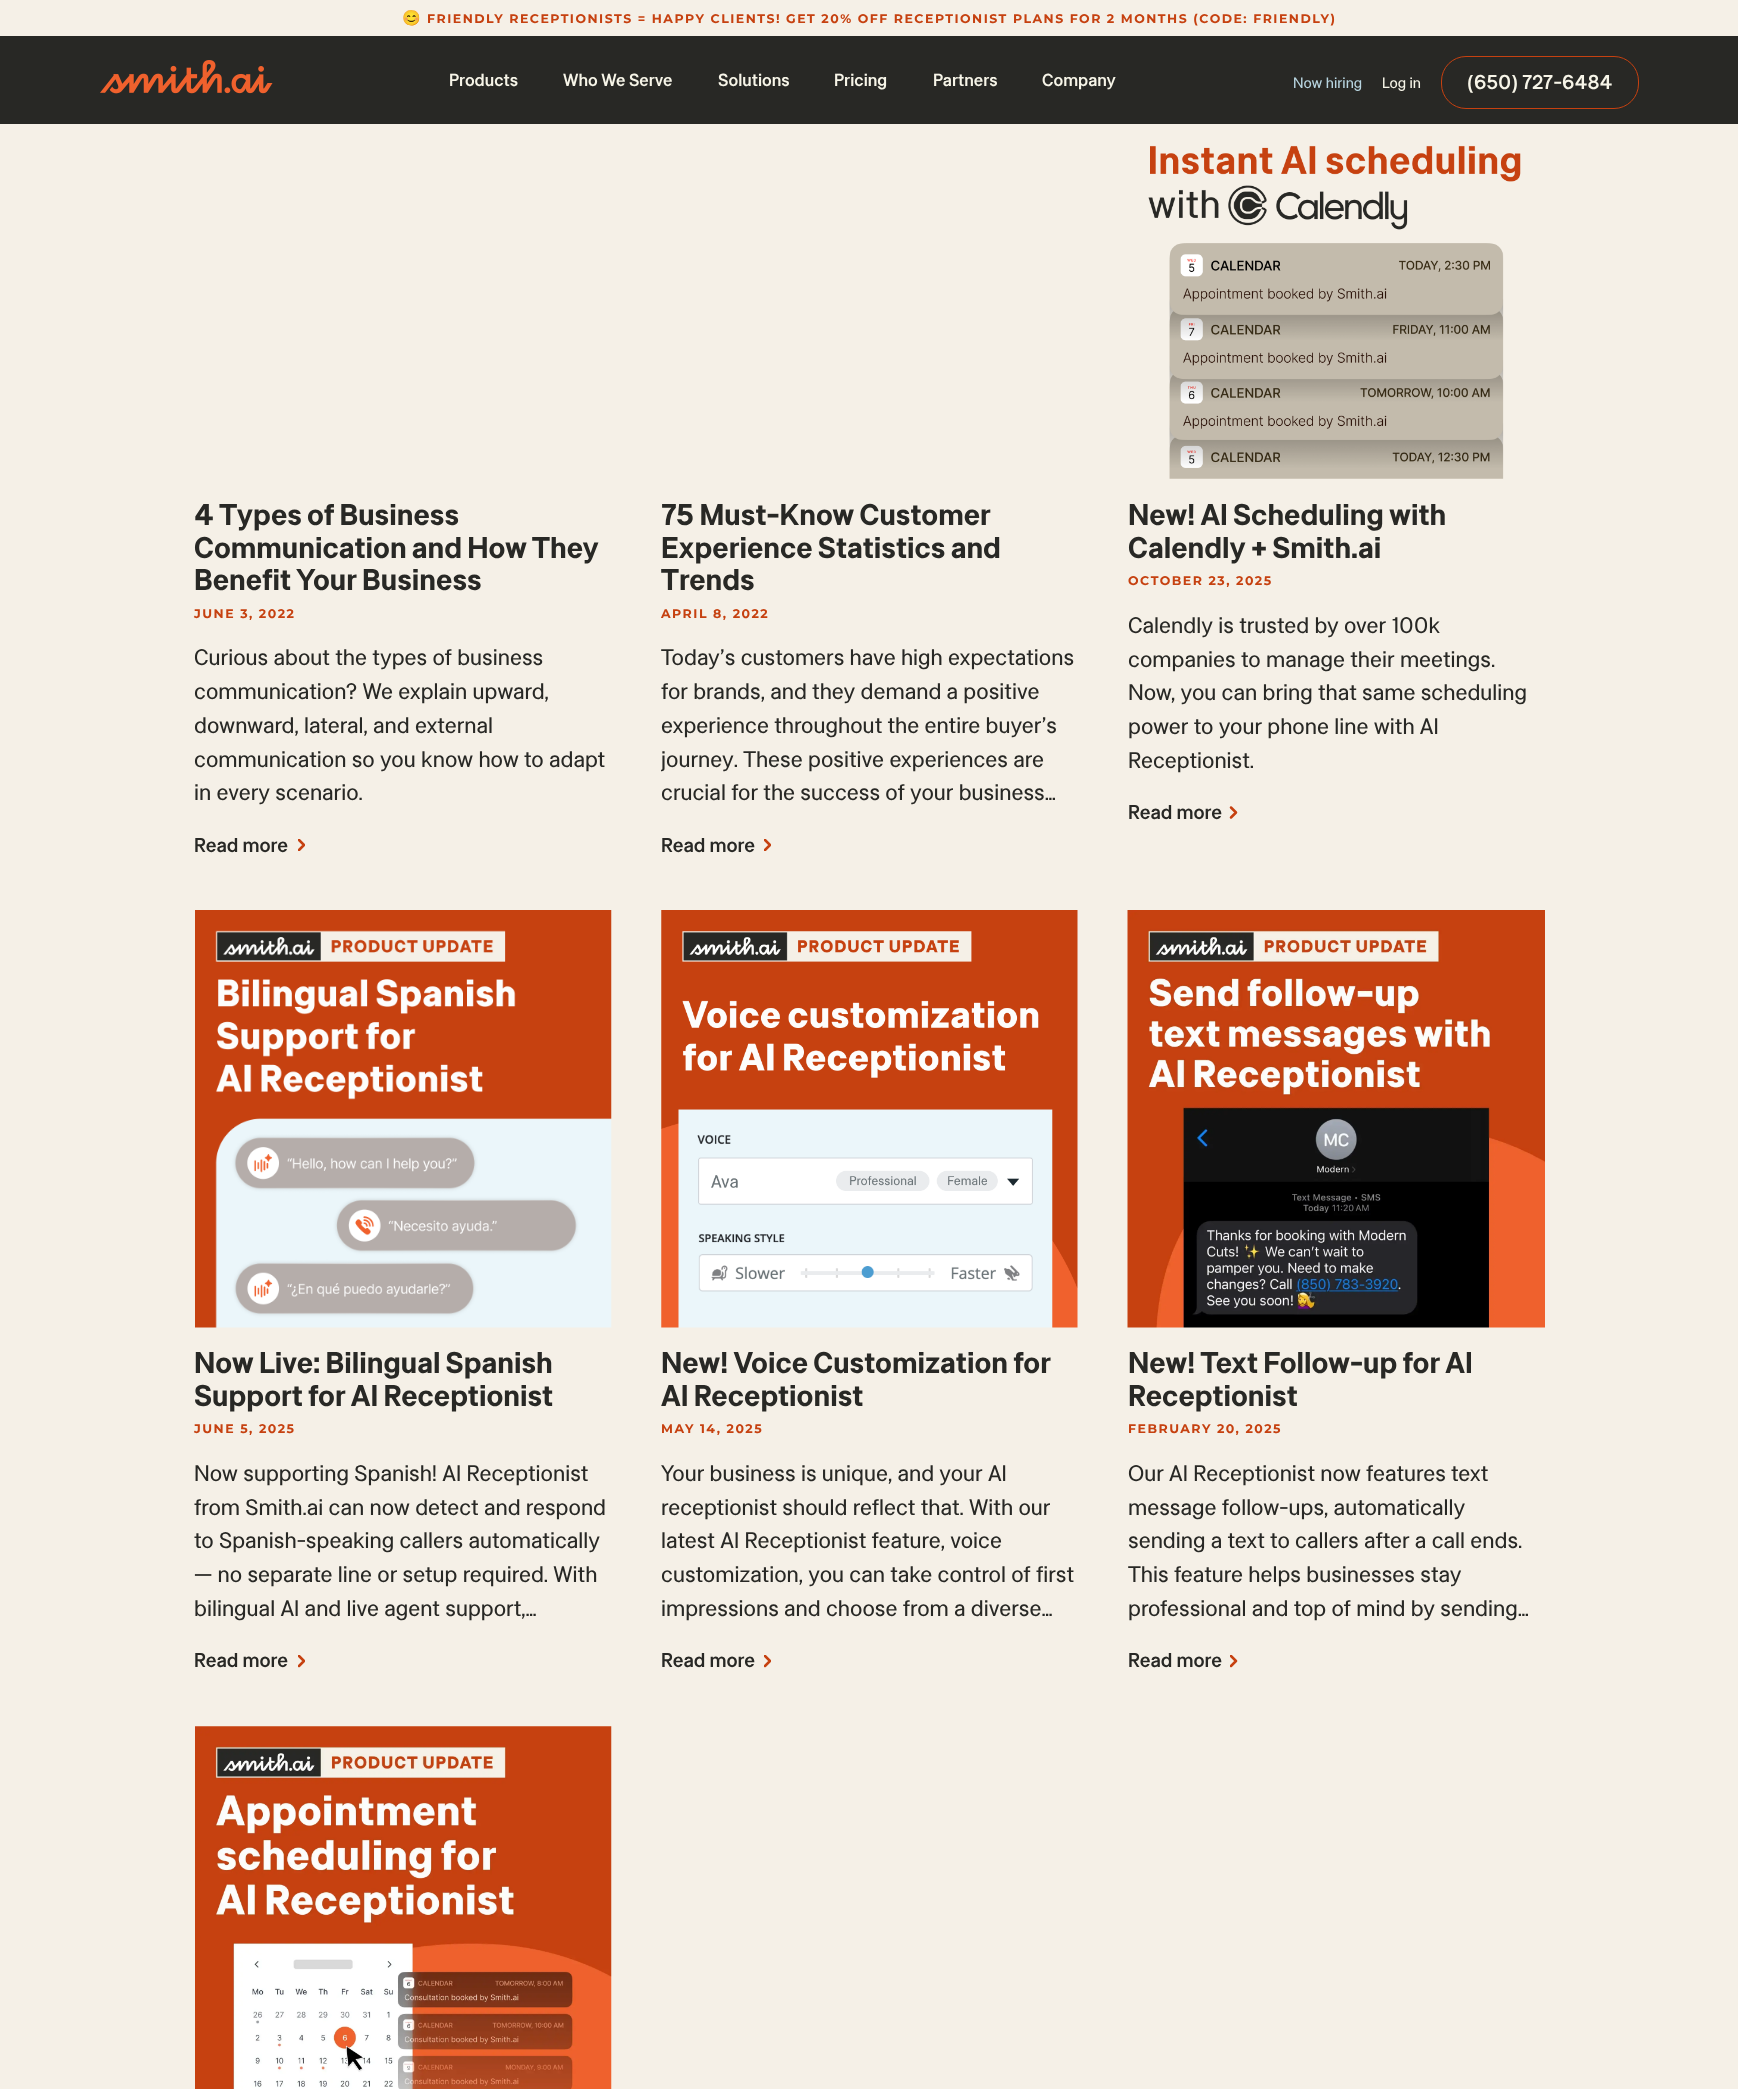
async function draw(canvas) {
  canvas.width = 1738
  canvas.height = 2089
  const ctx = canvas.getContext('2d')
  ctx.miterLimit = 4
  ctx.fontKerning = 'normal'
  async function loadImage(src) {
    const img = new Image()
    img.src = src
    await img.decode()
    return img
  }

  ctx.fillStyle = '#f5f0e7'
  ctx.fillRect(0, 0, 1738, 2089)
  ctx.letterSpacing = '1.5px'
  ctx.font = 'bold 15px Noto Color Emoji'
  ctx.fillStyle = '#c64110'
  ctx.fillText('😊', 402, 23)
  ctx.font = 'bold 12.5px Montserrat'
  ctx.fillText('FRIENDLY RECEPTIONISTS = HAPPY CLIENTS! GET 20% OFF RECEPTIONIST PLANS FOR 2 MONTHS (CODE: FRIENDLY)', 427, 23)
  ctx.fillStyle = '#282825'
  ctx.fillRect(0, 36, 1738, 88)
  ctx.drawImage(await loadImage('image0.png'), 100, 60, 173, 34)
  ctx.letterSpacing = '0px'
  ctx.font = '500 17.5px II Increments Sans'
  ctx.fillStyle = '#f7f5e8'
  ctx.fillText('Products', 449, 86)
  ctx.fillText('Who We Serve', 563, 86)
  ctx.fillText('Solutions', 718, 86)
  ctx.fillText('Pricing', 834, 86)
  ctx.fillText('Partners', 933, 86)
  ctx.fillText('Company', 1042, 86)
  ctx.font = '15px II Increments Sans'
  ctx.fillStyle = '#b8d5e0'
  ctx.fillText('Now hiring', 1293, 88)
  ctx.fillStyle = '#f7f5e8'
  ctx.fillText('Log in', 1382, 88)
  ctx.beginPath()
  ctx.roundRect(1441.5, 56.5, 197, 52, 24.5)
  ctx.strokeStyle = '#c64110'
  ctx.stroke()
  ctx.font = '500 20px II Increments Sans'
  ctx.fillText('(650) 727-6484', 1467, 89)
  ctx.font = 'bold 30px II Increments Sans'
  ctx.fillStyle = '#282825'
  ctx.fillText('4 Types of Business', 194, 525)
  ctx.fillText('Communication and How They', 194, 558)
  ctx.fillText('Benefit Your Business', 194, 590)
  ctx.letterSpacing = '1.5px'
  ctx.font = 'bold 12.5px Montserrat'
  ctx.fillStyle = '#c64110'
  ctx.fillText('JUNE 3, 2022', 194, 618)
  ctx.letterSpacing = '0px'
  ctx.font = '22.5px II Increments Sans'
  ctx.fillStyle = '#282825'
  ctx.fillText('Curious about the types of business', 194, 665)
  ctx.fillText('communication? We explain upward,', 194, 699)
  ctx.fillText('downward, lateral, and external', 194, 733)
  ctx.fillText('communication so you know how to adapt', 194, 767)
  ctx.fillText('in every scenario.', 194, 800)
  ctx.font = '500 20px II Increments Sans'
  ctx.fillText('Read more', 194, 852)
  ctx.save()
  ctx.beginPath()
  ctx.rect(298, 839, 7, 12)
  ctx.clip()
  ctx.beginPath()
  ctx.moveTo(299, 850)
  ctx.lineTo(304, 845)
  ctx.lineTo(299, 840)
  ctx.lineWidth = 2.5
  ctx.lineCap = 'round'
  ctx.lineJoin = 'round'
  ctx.stroke()
  ctx.restore()
  ctx.font = 'bold 30px II Increments Sans'
  ctx.fillText('75 Must-Know Customer', 661, 525)
  ctx.fillText('Experience Statistics and', 661, 558)
  ctx.fillText('Trends', 661, 590)
  ctx.letterSpacing = '1.5px'
  ctx.font = 'bold 12.5px Montserrat'
  ctx.fillStyle = '#c64110'
  ctx.fillText('APRIL 8, 2022', 661, 618)
  ctx.letterSpacing = '0px'
  ctx.font = '22.5px II Increments Sans'
  ctx.fillStyle = '#282825'
  ctx.fillText('Today’s customers have high expectations', 661, 665)
  ctx.fillText('for brands, and they demand a positive', 661, 699)
  ctx.fillText('experience throughout the entire buyer’s', 661, 733)
  ctx.save()
  ctx.beginPath()
  ctx.rect(661, 641, 417, 169)
  ctx.clip()
  ctx.fillText('journey. These positive experiences are', 661, 767)
  ctx.restore()
  ctx.fillText('crucial for the success of your business…', 661, 800)
  ctx.font = '500 20px II Increments Sans'
  ctx.fillText('Read more', 661, 852)
  ctx.save()
  ctx.beginPath()
  ctx.rect(764, 839, 7, 12)
  ctx.clip()
  ctx.beginPath()
  ctx.moveTo(765, 850)
  ctx.lineTo(770, 845)
  ctx.lineTo(765, 840)
  ctx.lineWidth = 2.5
  ctx.lineCap = 'round'
  ctx.lineJoin = 'round'
  ctx.stroke()
  ctx.restore()
  ctx.drawImage(await loadImage('image1.png'), 1127, 124, 418, 355)
  ctx.font = 'bold 30px II Increments Sans'
  ctx.fillText('New! AI Scheduling with', 1128, 525)
  ctx.fillText('Calendly + Smith.ai', 1128, 558)
  ctx.letterSpacing = '1.5px'
  ctx.font = 'bold 12.5px Montserrat'
  ctx.fillStyle = '#c64110'
  ctx.fillText('OCTOBER 23, 2025', 1128, 585)
  ctx.letterSpacing = '0px'
  ctx.font = '22.5px II Increments Sans'
  ctx.fillStyle = '#282825'
  ctx.fillText('Calendly is trusted by over 100k', 1128, 633)
  ctx.fillText('companies to manage their meetings.', 1128, 667)
  ctx.fillText('Now, you can bring that same scheduling', 1128, 700)
  ctx.fillText('power to your phone line with AI', 1128, 734)
  ctx.fillText('Receptionist.', 1128, 768)
  ctx.font = '500 20px II Increments Sans'
  ctx.fillText('Read more', 1128, 819)
  ctx.beginPath()
  ctx.moveTo(1231, 817.5)
  ctx.lineTo(1236, 812.5)
  ctx.lineTo(1231, 807.5)
  ctx.lineWidth = 2.5
  ctx.lineCap = 'round'
  ctx.lineJoin = 'round'
  ctx.stroke()
  ctx.drawImage(await loadImage('image2.png'), 195, 910, 417, 418)
  ctx.font = 'bold 30px II Increments Sans'
  ctx.fillText('Now Live: Bilingual Spanish', 194, 1373)
  ctx.fillText('Support for AI Receptionist', 194, 1406)
  ctx.letterSpacing = '1.5px'
  ctx.font = 'bold 12.5px Montserrat'
  ctx.fillStyle = '#c64110'
  ctx.fillText('JUNE 5, 2025', 194, 1433)
  ctx.letterSpacing = '0px'
  ctx.font = '22.5px II Increments Sans'
  ctx.fillStyle = '#282825'
  ctx.fillText('Now supporting Spanish! AI Receptionist', 194, 1481)
  ctx.fillText('from Smith.ai can now detect and respond', 194, 1515)
  ctx.fillText('to Spanish-speaking callers automatically', 194, 1548)
  ctx.fillText('— no separate line or setup required. With', 194, 1582)
  ctx.fillText('bilingual AI and live agent support,…', 194, 1616)
  ctx.font = '500 20px II Increments Sans'
  ctx.fillText('Read more', 194, 1667)
  ctx.save()
  ctx.beginPath()
  ctx.rect(298, 1655, 7, 13)
  ctx.clip()
  ctx.beginPath()
  ctx.moveTo(299, 1666)
  ctx.lineTo(304, 1661)
  ctx.lineTo(299, 1656)
  ctx.stroke()
  ctx.restore()
  ctx.drawImage(await loadImage('image3.png'), 661, 910, 417, 418)
  ctx.font = 'bold 30px II Increments Sans'
  ctx.fillText('New! Voice Customization for', 661, 1373)
  ctx.fillText('AI Receptionist', 661, 1406)
  ctx.letterSpacing = '1.5px'
  ctx.font = 'bold 12.5px Montserrat'
  ctx.fillStyle = '#c64110'
  ctx.fillText('MAY 14, 2025', 661, 1433)
  ctx.letterSpacing = '0px'
  ctx.font = '22.5px II Increments Sans'
  ctx.fillStyle = '#282825'
  ctx.fillText('Your business is unique, and your AI', 661, 1481)
  ctx.fillText('receptionist should reflect that. With our', 661, 1515)
  ctx.fillText('latest AI Receptionist feature, voice', 661, 1548)
  ctx.fillText('customization, you can take control of first', 661, 1582)
  ctx.fillText('impressions and choose from a diverse…', 661, 1616)
  ctx.font = '500 20px II Increments Sans'
  ctx.fillText('Read more', 661, 1667)
  ctx.save()
  ctx.beginPath()
  ctx.rect(764, 1655, 7, 13)
  ctx.clip()
  ctx.beginPath()
  ctx.moveTo(765, 1666)
  ctx.lineTo(770, 1661)
  ctx.lineTo(765, 1656)
  ctx.stroke()
  ctx.restore()
  ctx.drawImage(await loadImage('image4.png'), 1127, 910, 418, 418)
  ctx.font = 'bold 30px II Increments Sans'
  ctx.fillText('New! Text Follow-up for AI', 1128, 1373)
  ctx.fillText('Receptionist', 1128, 1406)
  ctx.letterSpacing = '1.5px'
  ctx.font = 'bold 12.5px Montserrat'
  ctx.fillStyle = '#c64110'
  ctx.fillText('FEBRUARY 20, 2025', 1128, 1433)
  ctx.letterSpacing = '0px'
  ctx.font = '22.5px II Increments Sans'
  ctx.fillStyle = '#282825'
  ctx.fillText('Our AI Receptionist now features text', 1128, 1481)
  ctx.fillText('message follow-ups, automatically', 1128, 1515)
  ctx.fillText('sending a text to callers after a call ends.', 1128, 1548)
  ctx.fillText('This feature helps businesses stay', 1128, 1582)
  ctx.fillText('professional and top of mind by sending…', 1128, 1616)
  ctx.font = '500 20px II Increments Sans'
  ctx.fillText('Read more', 1128, 1667)
  ctx.save()
  ctx.beginPath()
  ctx.rect(1230, 1655, 8, 13)
  ctx.clip()
  ctx.beginPath()
  ctx.moveTo(1231, 1666)
  ctx.lineTo(1236, 1661)
  ctx.lineTo(1231, 1656)
  ctx.stroke()
  ctx.restore()
  ctx.drawImage(await loadImage('image5.png'), 195, 1726, 417, 363)
}

draw(document.querySelector('canvas'))
